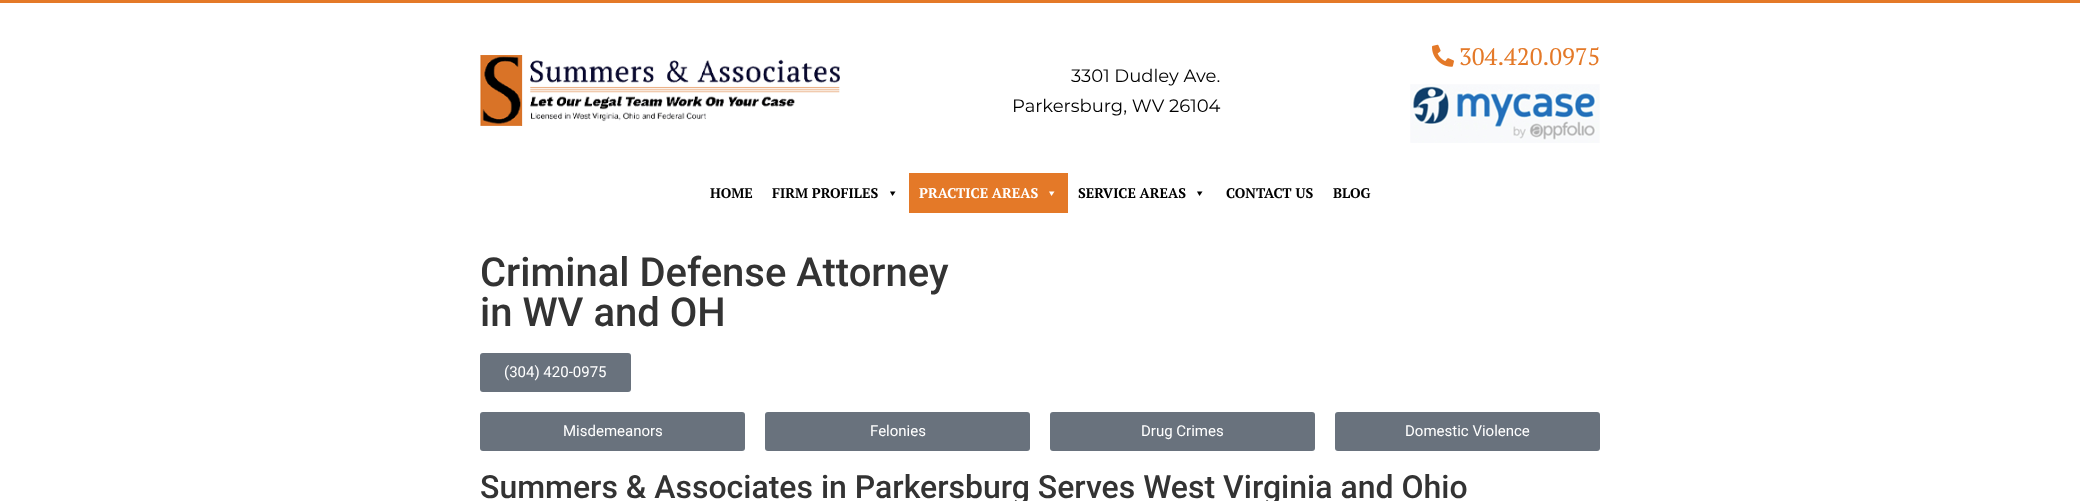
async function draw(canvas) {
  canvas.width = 2080
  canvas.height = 501
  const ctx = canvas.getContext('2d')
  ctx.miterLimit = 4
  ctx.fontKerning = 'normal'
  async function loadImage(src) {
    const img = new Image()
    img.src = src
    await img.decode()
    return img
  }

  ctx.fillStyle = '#fff'
  ctx.fillRect(0, 0, 2080, 501)
  ctx.fillStyle = '#e47928'
  ctx.fillRect(0, 0, 2080, 3)
  ctx.drawImage(await loadImage('image0.png'), 480, 55, 360, 71)
  ctx.font = '18px Montserrat'
  ctx.fillStyle = '#000'
  ctx.fillText('3301 Dudley Ave.', 1071, 82)
  ctx.fillText('Parkersburg, WV 26104', 1012, 112)
  ctx.drawImage(await loadImage('image1.png'), 1432, 44, 22, 23)
  ctx.font = '24px PT Serif'
  ctx.fillStyle = '#e47928'
  ctx.fillText('304.420.0975', 1459, 65)
  ctx.drawImage(await loadImage('image2.png'), 1410, 84, 190, 59)
  ctx.font = 'bold 14px PT Serif'
  ctx.fillStyle = '#000'
  ctx.fillText('HOME', 710, 198)
  ctx.fillText('FIRM PROFILES', 772, 198)
  ctx.beginPath()
  ctx.moveTo(895.5, 191.5)
  ctx.lineTo(892.5, 196)
  ctx.lineTo(890, 191.5)
  ctx.closePath()
  ctx.fill()
  ctx.fillStyle = '#e47928'
  ctx.fillRect(909, 173, 159, 40)
  ctx.fillStyle = '#fff'
  ctx.fillText('PRACTICE AREAS', 919, 198)
  ctx.beginPath()
  ctx.moveTo(1054.5, 191.5)
  ctx.lineTo(1051.5, 196)
  ctx.lineTo(1049, 191.5)
  ctx.closePath()
  ctx.fill()
  ctx.fillStyle = '#000'
  ctx.fillText('SERVICE AREAS', 1078, 198)
  ctx.beginPath()
  ctx.moveTo(1202.5, 191.5)
  ctx.lineTo(1199.5, 196)
  ctx.lineTo(1197, 191.5)
  ctx.closePath()
  ctx.fill()
  ctx.fillText('CONTACT US', 1226, 198)
  ctx.fillText('BLOG', 1333, 198)
  ctx.font = '500 40px Roboto'
  ctx.fillStyle = '#333'
  ctx.fillText('Criminal Defense Attorney', 480, 286)
  ctx.fillText('in WV and OH', 480, 326)
  ctx.fillStyle = '#69727d'
  ctx.beginPath()
  ctx.roundRect(480, 353, 151, 39, 3)
  ctx.fill()
  ctx.font = '15px Roboto'
  ctx.fillStyle = '#fff'
  ctx.fillText('(304) 420-0975', 504, 377)
  ctx.fillStyle = '#69727d'
  ctx.beginPath()
  ctx.roundRect(480, 412, 265, 39, 3)
  ctx.fill()
  ctx.fillStyle = '#fff'
  ctx.fillText('Misdemeanors', 563, 436)
  ctx.fillStyle = '#69727d'
  ctx.beginPath()
  ctx.roundRect(765, 412, 265, 39, 3)
  ctx.fill()
  ctx.fillStyle = '#fff'
  ctx.fillText('Felonies', 870, 436)
  ctx.fillStyle = '#69727d'
  ctx.beginPath()
  ctx.roundRect(1050, 412, 265, 39, 3)
  ctx.fill()
  ctx.fillStyle = '#fff'
  ctx.fillText('Drug Crimes', 1141, 436)
  ctx.fillStyle = '#69727d'
  ctx.beginPath()
  ctx.roundRect(1335, 412, 265, 39, 3)
  ctx.fill()
  ctx.fillStyle = '#fff'
  ctx.fillText('Domestic Violence', 1405, 436)
  ctx.font = '500 32px Roboto'
  ctx.fillStyle = '#333'
  ctx.fillText('Summers & Associates in Parkersburg Serves West Virginia and Ohio', 480, 498)
}

draw(document.querySelector('canvas'))
